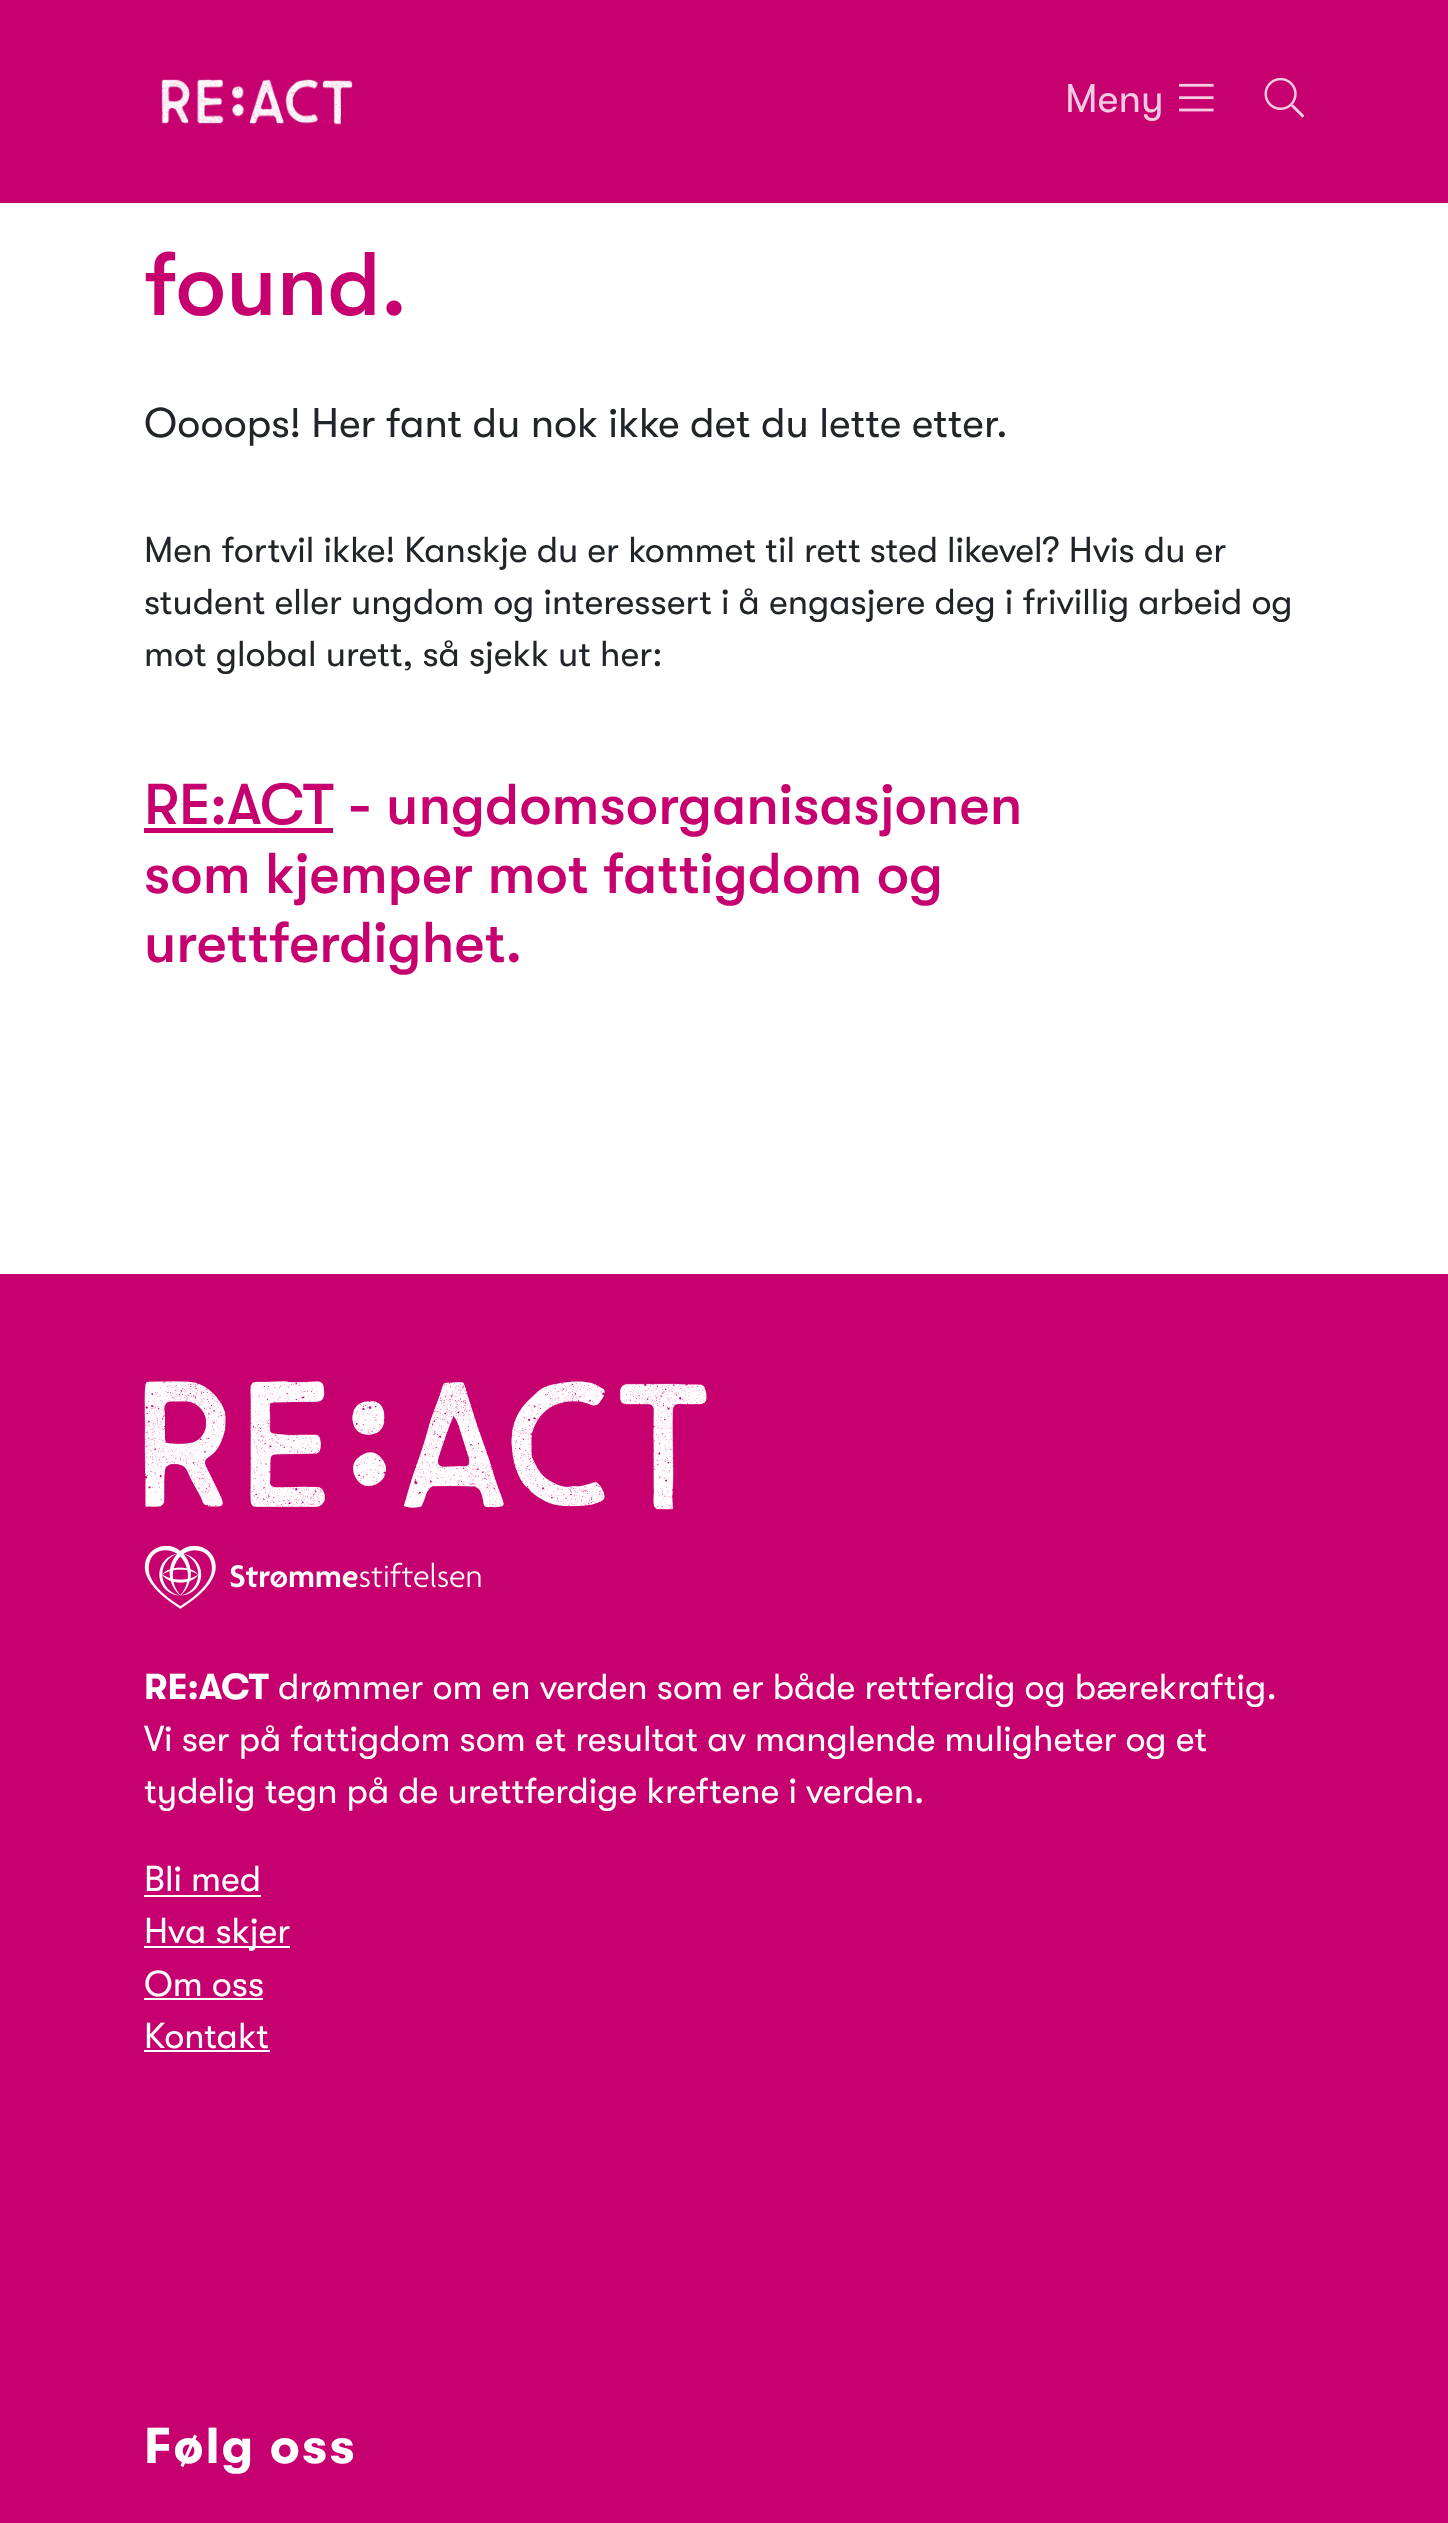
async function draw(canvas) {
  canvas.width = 1448
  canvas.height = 2523
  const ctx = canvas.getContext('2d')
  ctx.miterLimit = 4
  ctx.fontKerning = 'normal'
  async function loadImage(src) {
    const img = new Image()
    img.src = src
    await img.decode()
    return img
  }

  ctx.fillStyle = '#fff'
  ctx.fillRect(0, 0, 1448, 2523)
  ctx.fillStyle = '#c6006f'
  ctx.fillRect(0, 0, 1448, 203)
  ctx.drawImage(await loadImage('image0.png'), 161, 79, 192, 46)
  ctx.font = '40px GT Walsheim'
  ctx.fillStyle = '#f4cce2'
  ctx.fillText('Meny', 1065, 112)
  ctx.drawImage(await loadImage('image1.png'), 1179, 83, 35, 29)
  ctx.drawImage(await loadImage('image2.png'), 1264, 77, 41, 41)
  ctx.font = '500 90px GT Walsheim'
  ctx.fillStyle = '#c6006f'
  ctx.fillText('found.', 144, 315)
  ctx.font = '41.4px GT Walsheim'
  ctx.fillStyle = '#212529'
  ctx.fillText('Oooops! Her fant du nok ikke det du lette etter.', 144, 437)
  ctx.font = '36px GT Walsheim'
  ctx.fillText('Men fortvil ikke! Kanskje du er kommet til rett sted likevel? Hvis du er', 144, 562)
  ctx.fillText('student eller ungdom og interessert i å engasjere deg i frivillig arbeid og', 144, 614)
  ctx.fillText('mot global urett, så sjekk ut her:', 144, 666)
  ctx.fillStyle = '#c6006f'
  ctx.fillRect(144, 828, 189, 5)
  ctx.font = '500 57.6px GT Walsheim'
  ctx.fillText('RE:ACT - ungdomsorganisasjonen', 144, 824)
  ctx.fillText('som kjemper mot fattigdom og', 144, 893)
  ctx.fillText('urettferdighet.', 144, 962)
  ctx.fillRect(0, 1274, 1448, 1249)
  ctx.drawImage(await loadImage('image3.png'), 144, 1381, 563, 129)
  ctx.drawImage(await loadImage('image4.png'), 144, 1546, 337, 63)
  ctx.font = 'bold 36px GT Walsheim'
  ctx.fillStyle = '#fff'
  ctx.fillText('RE:ACT', 144, 1699)
  ctx.font = '36px GT Walsheim'
  ctx.fillText('drømmer om en verden som er både rettferdig og bærekraftig.', 278, 1699)
  ctx.fillText('Vi ser på fattigdom som et resultat av manglende muligheter og et', 144, 1751)
  ctx.fillText('tydelig tegn på de urettferdige kreftene i verden.', 144, 1803)
  ctx.fillText('Bli med', 144, 1891)
  ctx.fillRect(144, 1895, 117, 2)
  ctx.fillRect(144, 1946, 146, 2)
  ctx.fillText('Hva skjer', 144, 1943)
  ctx.fillText('Om oss', 144, 1996)
  ctx.fillRect(144, 1998, 119, 2)
  ctx.fillText('Kontakt', 144, 2048)
  ctx.fillRect(144, 2050, 126, 2)
  ctx.letterSpacing = '2.25px'
  ctx.font = 'bold 50.5px GT Walsheim'
  ctx.fillText('Følg oss', 144, 2463)
}

draw(document.querySelector('canvas'))
